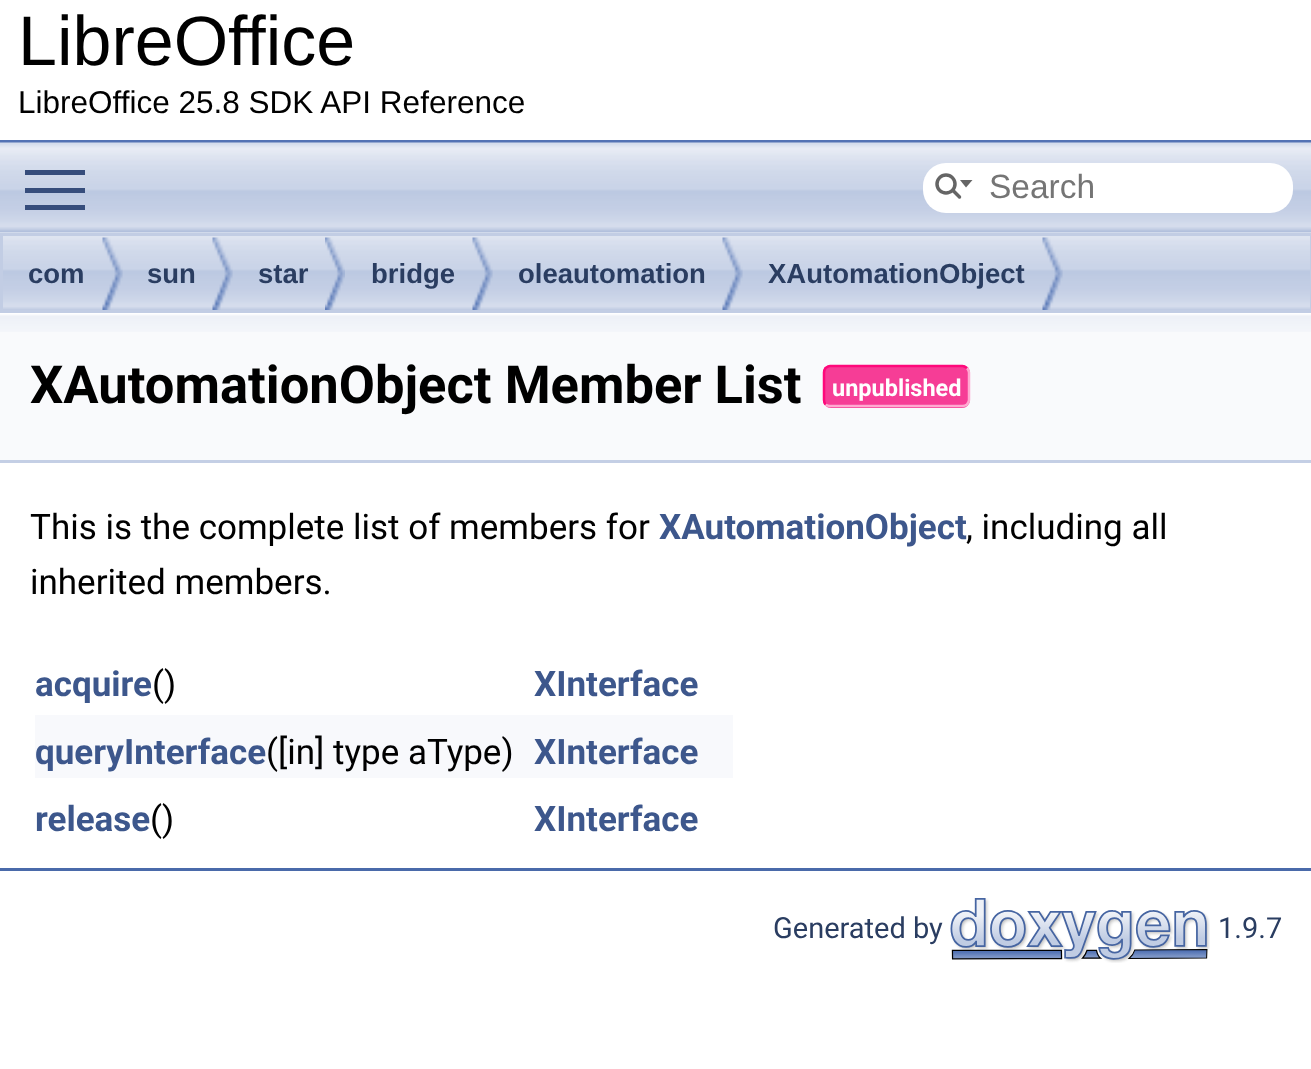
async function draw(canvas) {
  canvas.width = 1311
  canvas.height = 1069
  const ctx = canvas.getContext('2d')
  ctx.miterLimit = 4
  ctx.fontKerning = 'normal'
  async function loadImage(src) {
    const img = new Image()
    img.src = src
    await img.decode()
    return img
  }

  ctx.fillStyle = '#fff'
  ctx.fillRect(0, 0, 1311, 1069)
  ctx.fillStyle = '#5373b4'
  ctx.fillRect(0, 140, 1311, 3)
  ctx.font = '70px Liberation Sans'
  ctx.fillStyle = '#000'
  ctx.fillText('LibreOffice', 18, 65)
  ctx.font = '31.5px Liberation Sans'
  ctx.fillText('LibreOffice 25.8 SDK API Reference', 18, 113)
  ctx.drawImage(await loadImage('image1.png'), 0, 232, 1311, 78)
  ctx.drawImage(await loadImage('image0.png'), 0, 142, 1311, 91)
  ctx.fillStyle = '#364d7c'
  ctx.fillRect(25, 188, 60, 5)
  ctx.fillRect(25, 170, 60, 5)
  ctx.fillRect(25, 205, 60, 5)
  ctx.fillStyle = '#fff'
  ctx.beginPath()
  ctx.roundRect(923, 163, 370, 50, 23)
  ctx.fill()
  ctx.beginPath()
  ctx.arc(946, 184, 9, 0, 2 * Math.PI)
  ctx.strokeStyle = '#656565'
  ctx.lineWidth = 3.5
  ctx.stroke()
  ctx.fillStyle = '#656565'
  ctx.beginPath()
  ctx.moveTo(960, 180)
  ctx.lineTo(966, 187.5)
  ctx.lineTo(972.5, 180)
  ctx.closePath()
  ctx.fill()
  ctx.beginPath()
  ctx.moveTo(953, 190.5)
  ctx.lineTo(959.5, 197)
  ctx.lineCap = 'round'
  ctx.stroke()
  ctx.font = '33.5px Liberation Sans'
  ctx.fillStyle = '#757575'
  ctx.fillText('Search', 989, 198)
  ctx.strokeStyle = '#c2cde4'
  ctx.lineWidth = 3
  ctx.strokeRect(1.5, 234.5, 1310, 77)
  ctx.drawImage(await loadImage('image2.png'), 102, 237, 21, 73)
  ctx.font = 'bold 27.5px Liberation Sans'
  ctx.fillStyle = '#2a3d61'
  ctx.fillText('com', 28, 283)
  ctx.drawImage(await loadImage('image2.png'), 212, 237, 21, 73)
  ctx.fillText('sun', 147, 283)
  ctx.drawImage(await loadImage('image3.png'), 325, 237, 20, 73)
  ctx.fillText('star', 258, 283)
  ctx.drawImage(await loadImage('image2.png'), 472, 237, 21, 73)
  ctx.fillText('bridge', 371, 283)
  ctx.drawImage(await loadImage('image2.png'), 722, 237, 21, 73)
  ctx.fillText('oleautomation', 518, 283)
  ctx.drawImage(await loadImage('image4.png'), 1042, 237, 21, 73)
  ctx.fillText('XAutomationObject', 768, 283)
  ctx.fillStyle = '#f9fafc'
  ctx.fillRect(0, 332, 1311, 128)
  ctx.drawImage(await loadImage('image5.png'), 0, 313, 1311, 19)
  ctx.fillStyle = '#c4cfe5'
  ctx.fillRect(0, 460, 1311, 3)
  ctx.font = 'bold 52.5px Roboto'
  ctx.fillStyle = '#000'
  ctx.fillText('XAutomationObject Member List', 30, 403)
  ctx.fillStyle = '#f63d96'
  ctx.beginPath()
  ctx.roundRect(823, 365, 147, 43, 8)
  ctx.fill()
  ctx.beginPath()
  ctx.moveTo(967, 368)
  ctx.bezierCurveTo(968, 369.5, 969, 371, 969, 372.5)
  ctx.lineTo(969, 400)
  ctx.bezierCurveTo(969, 401.5, 968, 403, 967, 404.5)
  ctx.bezierCurveTo(965.5, 405.5, 964, 406, 962.5, 406)
  ctx.lineTo(830, 406)
  ctx.bezierCurveTo(828.5, 406, 827, 405.5, 825.5, 404.5)
  ctx.strokeStyle = '#ffaad1'
  ctx.lineWidth = 2.5
  ctx.lineCap = 'butt'
  ctx.stroke()
  ctx.beginPath()
  ctx.moveTo(825.5, 404.5)
  ctx.bezierCurveTo(824.5, 403, 824, 401.5, 824, 400)
  ctx.lineTo(824, 372.5)
  ctx.bezierCurveTo(824, 371, 824.5, 369.5, 825.5, 368)
  ctx.bezierCurveTo(827, 367, 828.5, 366, 830, 366)
  ctx.lineTo(962.5, 366)
  ctx.bezierCurveTo(964, 366, 965.5, 367, 967, 368)
  ctx.strokeStyle = '#ff087b'
  ctx.stroke()
  ctx.font = 'bold 23.5px Roboto'
  ctx.fillStyle = '#fff'
  ctx.fillText('unpublished', 832, 396)
  ctx.font = '35px Roboto'
  ctx.fillStyle = '#000'
  ctx.fillText('This is the complete list of members for', 30, 539)
  ctx.font = 'bold 35px Roboto'
  ctx.fillStyle = '#3d578c'
  ctx.fillText('XAutomationObject', 659, 539)
  ctx.font = '35px Roboto'
  ctx.fillStyle = '#000'
  ctx.fillText(', including all', 966, 539)
  ctx.fillText('inherited members.', 30, 594)
  ctx.font = 'bold 35px Roboto'
  ctx.fillStyle = '#3d578c'
  ctx.fillText('acquire', 35, 696)
  ctx.font = '35px Roboto'
  ctx.fillStyle = '#000'
  ctx.fillText('()', 152, 696)
  ctx.font = 'bold 35px Roboto'
  ctx.fillStyle = '#3d578c'
  ctx.fillText('XInterface', 534, 696)
  ctx.fillStyle = '#f8f9fc'
  ctx.fillRect(35, 715, 698, 63)
  ctx.fillStyle = '#3d578c'
  ctx.fillText('queryInterface', 35, 764)
  ctx.font = '35px Roboto'
  ctx.fillStyle = '#000'
  ctx.fillText('([in] type aType)', 266, 764)
  ctx.font = 'bold 35px Roboto'
  ctx.fillStyle = '#3d578c'
  ctx.fillText('XInterface', 534, 764)
  ctx.fillText('release', 35, 831)
  ctx.font = '35px Roboto'
  ctx.fillStyle = '#000'
  ctx.fillText('()', 150, 831)
  ctx.font = 'bold 35px Roboto'
  ctx.fillStyle = '#3d578c'
  ctx.fillText('XInterface', 534, 831)
  ctx.fillStyle = '#4a6aaa'
  ctx.fillRect(0, 868, 1311, 3)
  ctx.font = '29px Roboto'
  ctx.fillStyle = '#2a3d61'
  ctx.fillText('Generated by', 773, 938)
  ctx.drawImage(await loadImage('image6.png'), 950, 898, 260, 65)
  ctx.fillText('1.9.7', 1218, 938)
}

draw(document.querySelector('canvas'))
